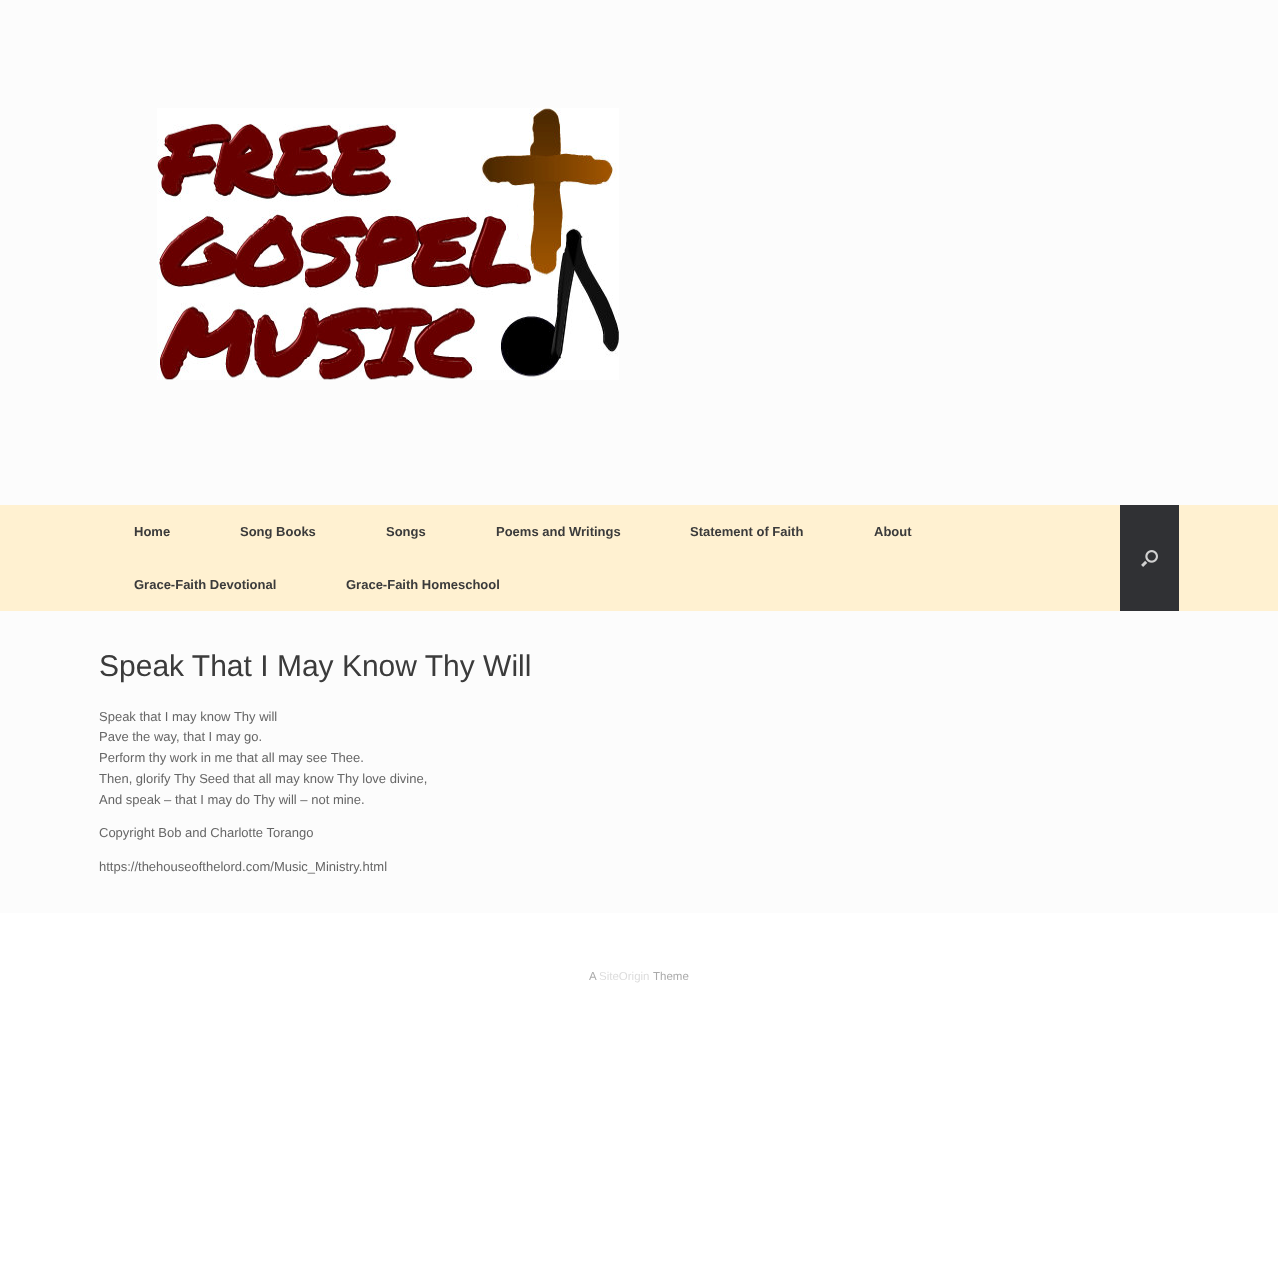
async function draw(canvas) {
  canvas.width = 1278
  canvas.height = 1261
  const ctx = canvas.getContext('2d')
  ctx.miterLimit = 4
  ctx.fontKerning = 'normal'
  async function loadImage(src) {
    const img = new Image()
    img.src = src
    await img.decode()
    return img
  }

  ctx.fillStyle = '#fff'
  ctx.fillRect(0, 0, 1278, 1261)
  ctx.fillStyle = '#fcfcfc'
  ctx.fillRect(0, 0, 1278, 505)
  ctx.drawImage(await loadImage('image0.png'), 157, 108, 462, 272)
  ctx.fillStyle = '#fff1d1'
  ctx.fillRect(0, 505, 1278, 106)
  ctx.font = 'bold 13px Liberation Sans'
  ctx.fillStyle = '#3b3b3b'
  ctx.fillText('Home', 134, 536)
  ctx.fillText('Song Books', 240, 536)
  ctx.fillText('Songs', 386, 536)
  ctx.fillText('Poems and Writings', 496, 536)
  ctx.fillText('Statement of Faith', 690, 536)
  ctx.fillText('About', 874, 536)
  ctx.fillText('Grace-Faith Devotional', 134, 589)
  ctx.fillText('Grace-Faith Homeschool', 346, 589)
  ctx.fillStyle = '#303134'
  ctx.fillRect(1120, 505, 59, 106)
  ctx.drawImage(await loadImage('image1.png'), 1141, 550, 17, 17)
  ctx.fillStyle = '#fcfcfc'
  ctx.fillRect(0, 611, 1278, 302)
  ctx.font = '30px Liberation Sans'
  ctx.fillStyle = '#3b3b3b'
  ctx.fillText('Speak That I May Know Thy Will', 99, 676)
  ctx.font = '13px Liberation Sans'
  ctx.fillStyle = '#666'
  ctx.fillText('Speak that I may know Thy will', 99, 721)
  ctx.fillText('Pave the way, that I may go.', 99, 741)
  ctx.fillText('Perform thy work in me that all may see Thee.', 99, 762)
  ctx.fillText('Then, glorify Thy Seed that all may know Thy love divine,', 99, 783)
  ctx.fillText('And speak – that I may do Thy will – not mine.', 99, 804)
  ctx.fillText('Copyright Bob and Charlotte Torango', 99, 837)
  ctx.fillText('https://thehouseofthelord.com/Music_Ministry.html', 99, 871)
  ctx.font = '11.5px Liberation Sans'
  ctx.fillStyle = '#aaa'
  ctx.fillText('A', 589, 980)
  ctx.fillStyle = '#ddd'
  ctx.fillText('SiteOrigin', 599, 980)
  ctx.fillStyle = '#aaa'
  ctx.fillText('Theme', 653, 980)
}

draw(document.querySelector('canvas'))
